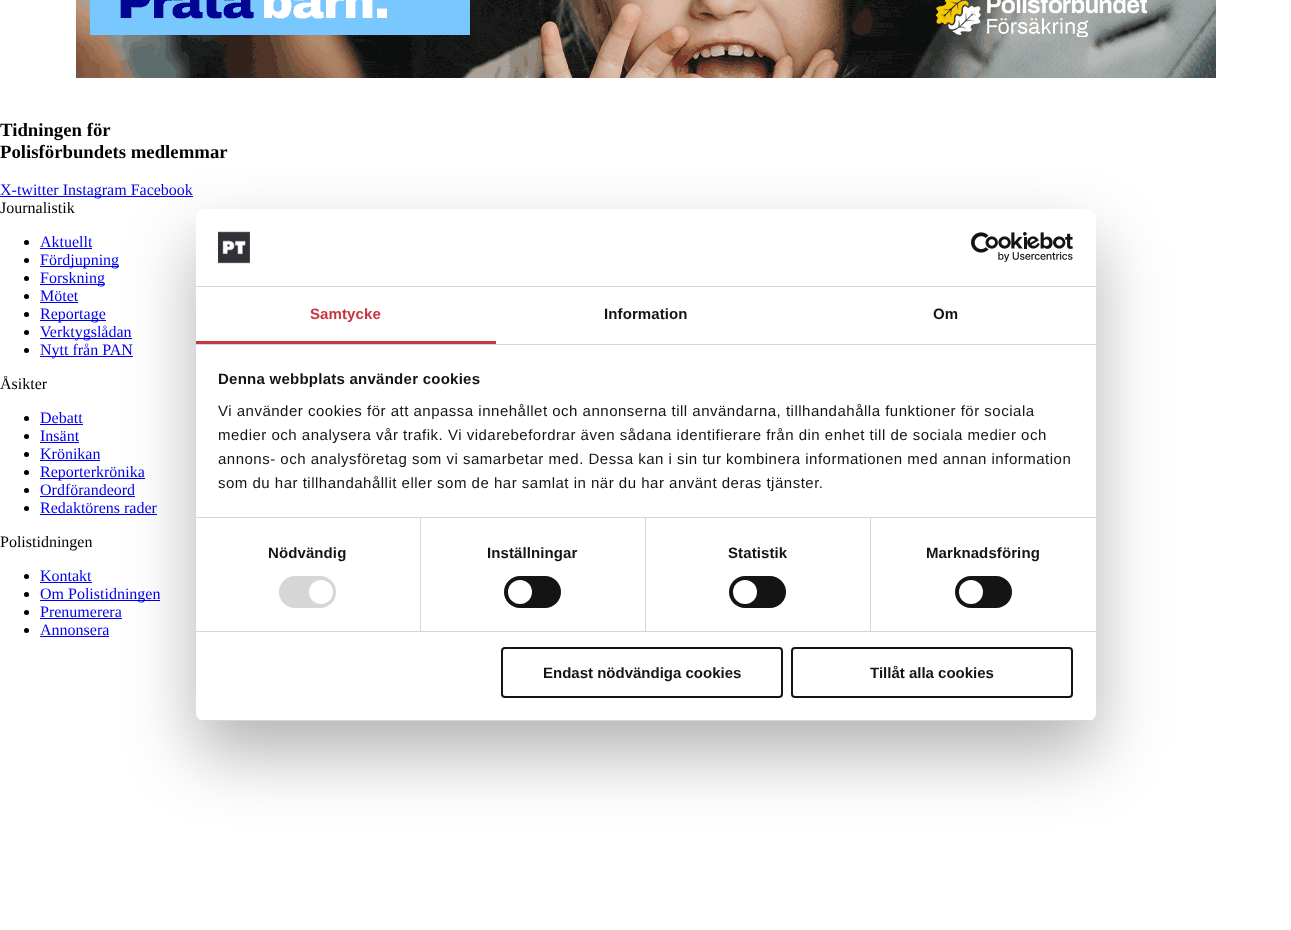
async function draw(canvas) {
  canvas.width = 1291
  canvas.height = 930
  const ctx = canvas.getContext('2d')
  ctx.miterLimit = 4
  ctx.fontKerning = 'normal'
  async function loadImage(src) {
    const img = new Image()
    img.src = src
    await img.decode()
    return img
  }

  ctx.fillStyle = '#fff'
  ctx.fillRect(0, 0, 1291, 930)
  ctx.drawImage(await loadImage('image0.png'), 76, 0, 1140, 78)
  ctx.font = 'bold 18.75px Liberation Serif'
  ctx.fillStyle = '#000'
  ctx.fillText('Tidningen för', 0, 136)
  ctx.fillText('Polisförbundets medlemmar', 0, 158)
  ctx.fillStyle = '#00e'
  ctx.fillRect(0, 196, 193, 1)
  ctx.font = '16px Liberation Serif'
  ctx.fillText('X-twitter Instagram Facebook', 0, 195)
  ctx.fillStyle = '#000'
  ctx.fillText('Journalistik', 0, 213)
  ctx.beginPath()
  ctx.arc(26.5, 242.5, 2.5, 0, 2 * Math.PI)
  ctx.fill()
  ctx.fillStyle = '#00e'
  ctx.fillText('Aktuellt', 40, 247)
  ctx.fillRect(40, 248, 52, 1)
  ctx.fillStyle = '#000'
  ctx.beginPath()
  ctx.arc(26.5, 260.5, 2.5, 0, 2 * Math.PI)
  ctx.fill()
  ctx.fillStyle = '#00e'
  ctx.fillRect(40, 266, 79, 1)
  ctx.fillText('Fördjupning', 40, 265)
  ctx.fillStyle = '#000'
  ctx.beginPath()
  ctx.arc(26.5, 278.5, 2.5, 0, 2 * Math.PI)
  ctx.fill()
  ctx.fillStyle = '#00e'
  ctx.fillRect(40, 284, 65, 1)
  ctx.fillText('Forskning', 40, 283)
  ctx.fillStyle = '#000'
  ctx.beginPath()
  ctx.arc(26.5, 296.5, 2.5, 0, 2 * Math.PI)
  ctx.fill()
  ctx.fillStyle = '#00e'
  ctx.fillText('Mötet', 40, 301)
  ctx.fillRect(40, 302, 38, 1)
  ctx.fillStyle = '#000'
  ctx.beginPath()
  ctx.arc(26.5, 314.5, 2.5, 0, 2 * Math.PI)
  ctx.fill()
  ctx.fillStyle = '#00e'
  ctx.fillRect(40, 320, 66, 1)
  ctx.fillText('Reportage', 40, 319)
  ctx.fillStyle = '#000'
  ctx.beginPath()
  ctx.arc(26.5, 332.5, 2.5, 0, 2 * Math.PI)
  ctx.fill()
  ctx.fillStyle = '#00e'
  ctx.fillRect(40, 338, 92, 1)
  ctx.fillText('Verktygslådan', 40, 337)
  ctx.fillStyle = '#000'
  ctx.beginPath()
  ctx.arc(26.5, 350.5, 2.5, 0, 2 * Math.PI)
  ctx.fill()
  ctx.fillStyle = '#00e'
  ctx.fillRect(40, 356, 93, 1)
  ctx.fillText('Nytt från PAN', 40, 355)
  ctx.fillStyle = '#000'
  ctx.fillText('Åsikter', 0, 389)
  ctx.beginPath()
  ctx.arc(26.5, 418.5, 2.5, 0, 2 * Math.PI)
  ctx.fill()
  ctx.fillStyle = '#00e'
  ctx.fillText('Debatt', 40, 423)
  ctx.fillRect(40, 424, 43, 1)
  ctx.fillStyle = '#000'
  ctx.beginPath()
  ctx.arc(26.5, 436.5, 2.5, 0, 2 * Math.PI)
  ctx.fill()
  ctx.fillStyle = '#00e'
  ctx.fillText('Insänt', 40, 441)
  ctx.fillRect(40, 442, 39, 1)
  ctx.fillStyle = '#000'
  ctx.beginPath()
  ctx.arc(26.5, 454.5, 2.5, 0, 2 * Math.PI)
  ctx.fill()
  ctx.fillStyle = '#00e'
  ctx.fillText('Krönikan', 40, 459)
  ctx.fillRect(40, 460, 60, 1)
  ctx.fillStyle = '#000'
  ctx.beginPath()
  ctx.arc(26.5, 472.5, 2.5, 0, 2 * Math.PI)
  ctx.fill()
  ctx.fillStyle = '#00e'
  ctx.fillRect(40, 478, 105, 1)
  ctx.fillText('Reporterkrönika', 40, 477)
  ctx.fillStyle = '#000'
  ctx.beginPath()
  ctx.arc(26.5, 490.5, 2.5, 0, 2 * Math.PI)
  ctx.fill()
  ctx.fillStyle = '#00e'
  ctx.fillText('Ordförandeord', 40, 495)
  ctx.fillRect(40, 496, 95, 1)
  ctx.fillStyle = '#000'
  ctx.beginPath()
  ctx.arc(26.5, 508.5, 2.5, 0, 2 * Math.PI)
  ctx.fill()
  ctx.fillStyle = '#00e'
  ctx.fillText('Redaktörens rader', 40, 513)
  ctx.fillRect(40, 514, 117, 1)
  ctx.fillStyle = '#000'
  ctx.fillText('Polistidningen', 0, 547)
  ctx.beginPath()
  ctx.arc(26.5, 576.5, 2.5, 0, 2 * Math.PI)
  ctx.fill()
  ctx.fillStyle = '#00e'
  ctx.fillText('Kontakt', 40, 581)
  ctx.fillRect(40, 582, 52, 1)
  ctx.fillStyle = '#000'
  ctx.beginPath()
  ctx.arc(26.5, 594.5, 2.5, 0, 2 * Math.PI)
  ctx.fill()
  ctx.fillStyle = '#00e'
  ctx.fillRect(40, 600, 120, 1)
  ctx.fillText('Om Polistidningen', 40, 599)
  ctx.fillStyle = '#000'
  ctx.beginPath()
  ctx.arc(26.5, 612.5, 2.5, 0, 2 * Math.PI)
  ctx.fill()
  ctx.fillStyle = '#00e'
  ctx.fillText('Prenumerera', 40, 617)
  ctx.fillRect(40, 618, 82, 1)
  ctx.fillStyle = '#000'
  ctx.beginPath()
  ctx.arc(26.5, 630.5, 2.5, 0, 2 * Math.PI)
  ctx.fill()
  ctx.fillStyle = '#00e'
  ctx.fillText('Annonsera', 40, 635)
  ctx.fillRect(40, 636, 69, 1)
  ctx.fillStyle = '#0000004d'
  ctx.filter = 'blur(34px)'
  ctx.beginPath()
  ctx.roundRect(196, 241, 900, 512, 8)
  ctx.fill()
  ctx.filter = 'none'
  ctx.fillStyle = '#fff'
  ctx.beginPath()
  ctx.roundRect(196, 209, 900, 512, 8)
  ctx.fill()
  ctx.fillStyle = '#d6d6d6'
  ctx.fillRect(196, 286, 900, 1)
  ctx.drawImage(await loadImage('image1.png'), 218, 231, 32, 33)
  ctx.drawImage(await loadImage('image2.png'), 971, 232, 102, 30)
  ctx.fillRect(196, 344, 900, 1)
  ctx.fillStyle = '#c73641'
  ctx.fillRect(196, 341, 300, 3)
  ctx.letterSpacing = '0.1px'
  ctx.font = 'bold 15px Liberation Sans'
  ctx.fillText('Samtycke', 310, 319)
  ctx.fillStyle = '#141414'
  ctx.fillText('Information', 604, 319)
  ctx.fillText('Om', 933, 319)
  ctx.fillStyle = '#d6d6d6'
  ctx.fillRect(196, 517, 900, 1)
  ctx.letterSpacing = '0.25px'
  ctx.fillStyle = '#141414'
  ctx.fillText('Denna webbplats använder cookies', 218, 384)
  ctx.letterSpacing = '0.5px'
  ctx.font = '15px Liberation Sans'
  ctx.fillText('Vi använder cookies för att anpassa innehållet och annonserna till användarna, tillhandahålla funktioner för sociala', 218, 416)
  ctx.fillText('medier och analysera vår trafik. Vi vidarebefordrar även sådana identifierare från din enhet till de sociala medier och', 218, 440)
  ctx.fillText('annons- och analysföretag som vi samarbetar med. Dessa kan i sin tur kombinera informationen med annan information', 218, 464)
  ctx.fillText('som du har tillhandahållit eller som de har samlat in när du har använt deras tjänster.', 218, 488)
  ctx.fillStyle = '#d6d6d6'
  ctx.fillRect(196, 631, 900, 1)
  ctx.fillRect(420, 518, 1, 113)
  ctx.letterSpacing = '0.1px'
  ctx.font = 'bold 15px Liberation Sans'
  ctx.fillStyle = '#141414'
  ctx.fillText('Nödvändig', 268, 558)
  ctx.fillStyle = '#d6d6d6'
  ctx.beginPath()
  ctx.roundRect(279, 576, 57, 32, 16)
  ctx.fill()
  ctx.fillStyle = '#fff'
  ctx.beginPath()
  ctx.arc(321, 592, 12, 0, 2 * Math.PI)
  ctx.fill()
  ctx.fillStyle = '#d6d6d6'
  ctx.fillRect(645, 518, 1, 113)
  ctx.fillStyle = '#141414'
  ctx.fillText('Inställningar', 487, 558)
  ctx.beginPath()
  ctx.roundRect(504, 576, 57, 32, 16)
  ctx.fill()
  ctx.fillStyle = '#fff'
  ctx.beginPath()
  ctx.arc(520, 592, 12, 0, 2 * Math.PI)
  ctx.fill()
  ctx.fillStyle = '#d6d6d6'
  ctx.fillRect(870, 518, 1, 113)
  ctx.fillStyle = '#141414'
  ctx.fillText('Statistik', 728, 558)
  ctx.beginPath()
  ctx.roundRect(729, 576, 57, 32, 16)
  ctx.fill()
  ctx.fillStyle = '#fff'
  ctx.beginPath()
  ctx.arc(745, 592, 12, 0, 2 * Math.PI)
  ctx.fill()
  ctx.fillStyle = '#141414'
  ctx.fillText('Marknadsföring', 926, 558)
  ctx.beginPath()
  ctx.roundRect(955, 576, 57, 32, 16)
  ctx.fill()
  ctx.fillStyle = '#fff'
  ctx.beginPath()
  ctx.arc(971, 592, 12, 0, 2 * Math.PI)
  ctx.fill()
  ctx.save()
  ctx.beginPath()
  ctx.roundRect(196, 209, 900, 512, 8)
  ctx.clip()
  ctx.fillStyle = '#d6d6d6'
  ctx.fillRect(196, 720, 900, 1)
  ctx.restore()
  ctx.beginPath()
  ctx.roundRect(502, 648, 280, 49, 3)
  ctx.strokeStyle = '#141414'
  ctx.lineWidth = 2
  ctx.stroke()
  ctx.letterSpacing = '0px'
  ctx.fillStyle = '#141414'
  ctx.fillText('Endast nödvändiga cookies', 543, 678)
  ctx.beginPath()
  ctx.roundRect(792, 648, 280, 49, 3)
  ctx.stroke()
  ctx.fillText('Tillåt alla cookies', 870, 678)
}

draw(document.querySelector('canvas'))
